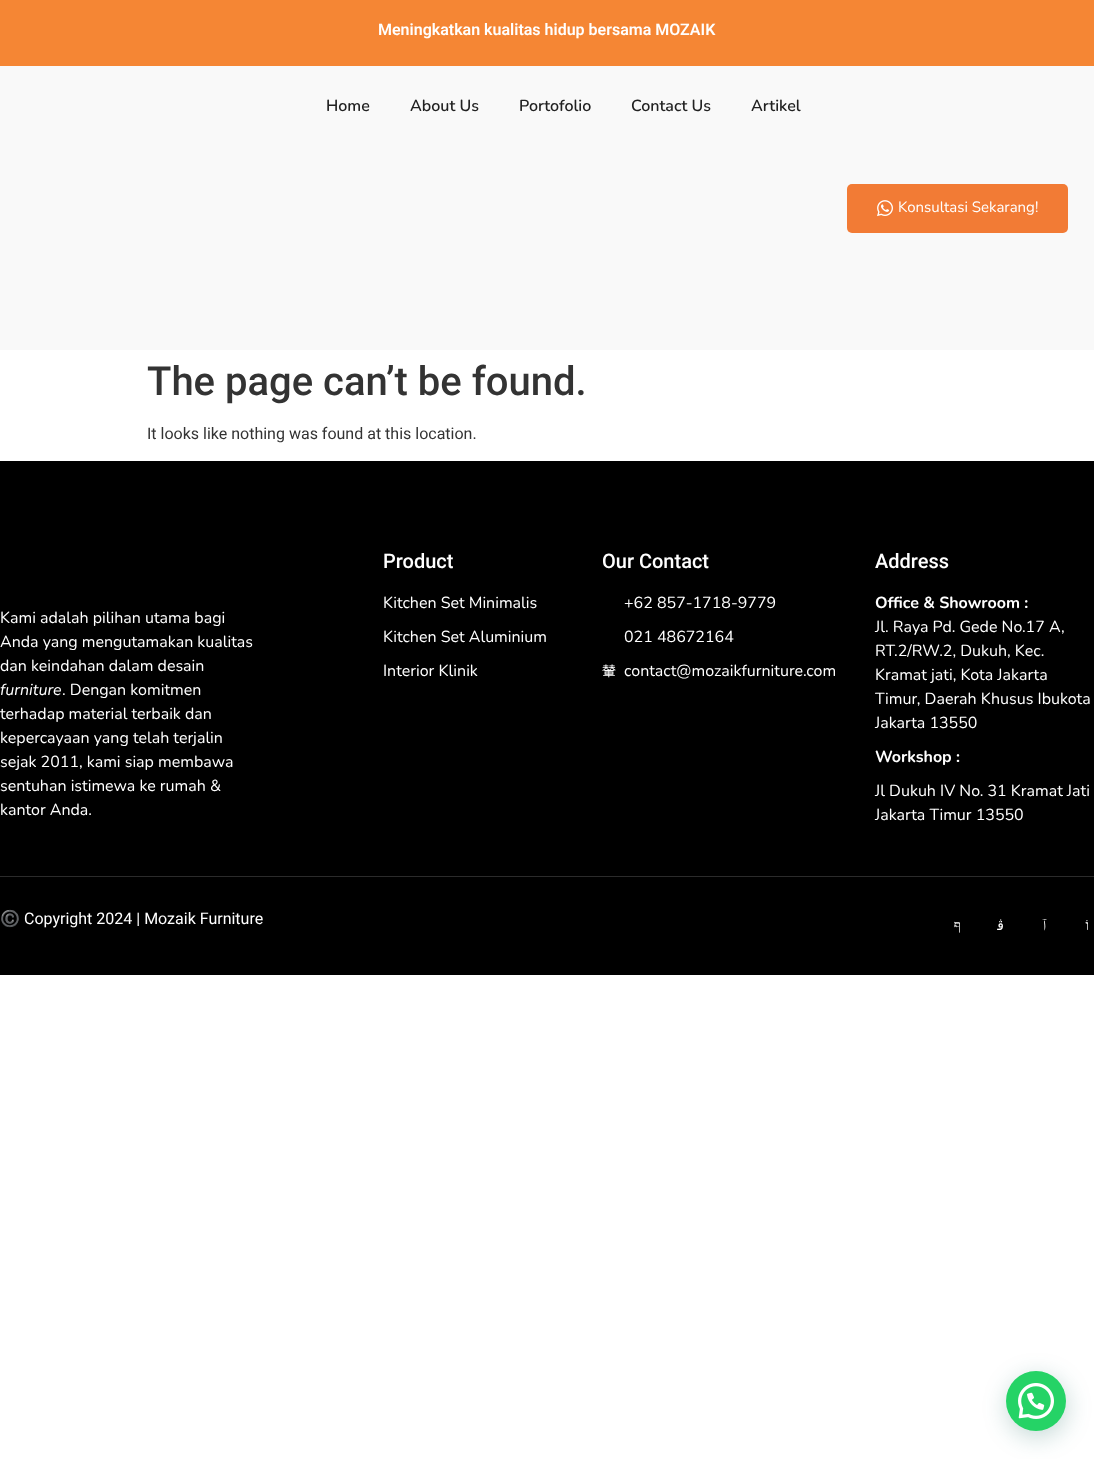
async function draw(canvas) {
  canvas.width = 1094
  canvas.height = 1459
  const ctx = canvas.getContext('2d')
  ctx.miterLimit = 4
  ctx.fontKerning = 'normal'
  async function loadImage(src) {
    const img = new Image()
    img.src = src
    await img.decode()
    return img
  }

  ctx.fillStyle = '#fff'
  ctx.fillRect(0, 0, 1094, 1459)
  ctx.fillStyle = '#f58634'
  ctx.fillRect(0, 0, 1094, 66)
  ctx.font = '600 16px Roboto'
  ctx.fillStyle = '#fff'
  ctx.fillText('Meningkatkan kualitas hidup bersama MOZAIK', 378, 35)
  ctx.fillStyle = '#f9f9f9'
  ctx.fillRect(0, 66, 1094, 284)
  ctx.font = '600 16px Nunito'
  ctx.fillStyle = '#212121'
  ctx.fillText('Home', 326, 111)
  ctx.fillText('About Us', 410, 111)
  ctx.fillText('Portofolio', 519, 111)
  ctx.fillText('Contact Us', 631, 111)
  ctx.fillText('Artikel', 751, 111)
  ctx.fillStyle = '#f27b35'
  ctx.beginPath()
  ctx.roundRect(847, 184, 221, 49, 5)
  ctx.fill()
  ctx.drawImage(await loadImage('image0.png'), 877, 200, 16, 17)
  ctx.font = '15px Nunito'
  ctx.fillStyle = '#fff'
  ctx.fillText('Konsultasi Sekarang!', 898, 212)
  ctx.font = '500 40px Roboto'
  ctx.fillStyle = '#333'
  ctx.fillText('The page can’t be found.', 147, 395)
  ctx.font = '16px Roboto'
  ctx.fillText('It looks like nothing was found at this location.', 147, 439)
  ctx.fillStyle = '#000'
  ctx.fillRect(0, 461, 1094, 514)
  ctx.font = '16px Nunito'
  ctx.fillStyle = '#fff'
  ctx.fillText('Kami adalah pilihan utama bagi', 0, 623)
  ctx.fillText('Anda yang mengutamakan kualitas', 0, 647)
  ctx.fillText('dan keindahan dalam desain', 0, 671)
  ctx.font = 'italic 16px Nunito'
  ctx.fillText('furniture', 0, 695)
  ctx.font = '16px Nunito'
  ctx.fillText('. Dengan komitmen', 62, 695)
  ctx.fillText('terhadap material terbaik dan', 0, 719)
  ctx.fillText('kepercayaan yang telah terjalin', 0, 743)
  ctx.fillText('sejak 2011, kami siap membawa', 0, 767)
  ctx.fillText('sentuhan istimewa ke rumah &', 0, 791)
  ctx.fillText('kantor Anda.', 0, 815)
  ctx.font = '500 20px Roboto'
  ctx.fillText('Product', 383, 568)
  ctx.font = '16px Nunito'
  ctx.fillText('Kitchen Set Minimalis', 383, 608)
  ctx.fillText('Kitchen Set Aluminium', 383, 642)
  ctx.fillText('Interior Klinik', 383, 676)
  ctx.font = '500 20px Roboto'
  ctx.fillText('Our Contact', 602, 568)
  ctx.font = '16px Nunito'
  ctx.fillText('+62 857-1718-9779', 624, 608)
  ctx.fillText('021 48672164', 624, 642)
  ctx.font = '500 14px WenQuanYi Zen Hei'
  ctx.fillText('輦', 602, 675)
  ctx.font = '16px Nunito'
  ctx.fillText('contact@mozaikfurniture.com', 624, 676)
  ctx.font = '500 20px Roboto'
  ctx.fillText('Address', 875, 568)
  ctx.font = 'bold 16px Nunito'
  ctx.fillText('Office & Showroom :', 875, 608)
  ctx.font = '16px Nunito'
  ctx.fillText('Jl. Raya Pd. Gede No.17 A,', 875, 632)
  ctx.fillText('RT.2/RW.2, Dukuh, Kec.', 875, 656)
  ctx.fillText('Kramat jati, Kota Jakarta', 875, 680)
  ctx.fillText('Timur, Daerah Khusus Ibukota', 875, 704)
  ctx.fillText('Jakarta 13550', 875, 728)
  ctx.font = 'bold 16px Nunito'
  ctx.fillText('Workshop :', 875, 762)
  ctx.font = '16px Nunito'
  ctx.fillText('Jl Dukuh IV No. 31 Kramat Jati', 875, 796)
  ctx.fillText('Jakarta Timur 13550', 875, 820)
  ctx.fillStyle = '#2b2b2b'
  ctx.fillRect(0, 876, 1094, 1)
  ctx.font = '16px Noto Color Emoji'
  ctx.fillStyle = '#fff'
  ctx.fillText('©️', 0, 924)
  ctx.font = '16px Roboto'
  ctx.fillText('Copyright 2024 | Mozaik Furniture', 24, 924)
  ctx.direction = 'rtl'
  ctx.font = '14px Liberation Serif'
  ctx.fillText('ףּ', 961, 930)
  ctx.font = '14px DejaVu Sans'
  ctx.fillText('ﭬ', 1004, 930)
  ctx.save()
  ctx.beginPath()
  ctx.rect(547, 919, 547, 14)
  ctx.clip()
  ctx.font = '14px FreeSerif'
  ctx.fillText('ﭐ', 1046, 930)
  ctx.restore()
  ctx.font = '14px Liberation Serif'
  ctx.fillText('וֹ', 1089, 930)
  ctx.fillStyle = '#075e543d'
  ctx.filter = 'blur(12px)'
  ctx.beginPath()
  ctx.roundRect(1007, 1377, 60, 60, 30)
  ctx.fill()
  ctx.filter = 'none'
  ctx.fillStyle = '#25d366'
  ctx.beginPath()
  ctx.arc(1036, 1401, 30, 0, 2 * Math.PI)
  ctx.fill()
  ctx.drawImage(await loadImage('image1.png'), 1018, 1383, 36, 36)
}

draw(document.querySelector('canvas'))
